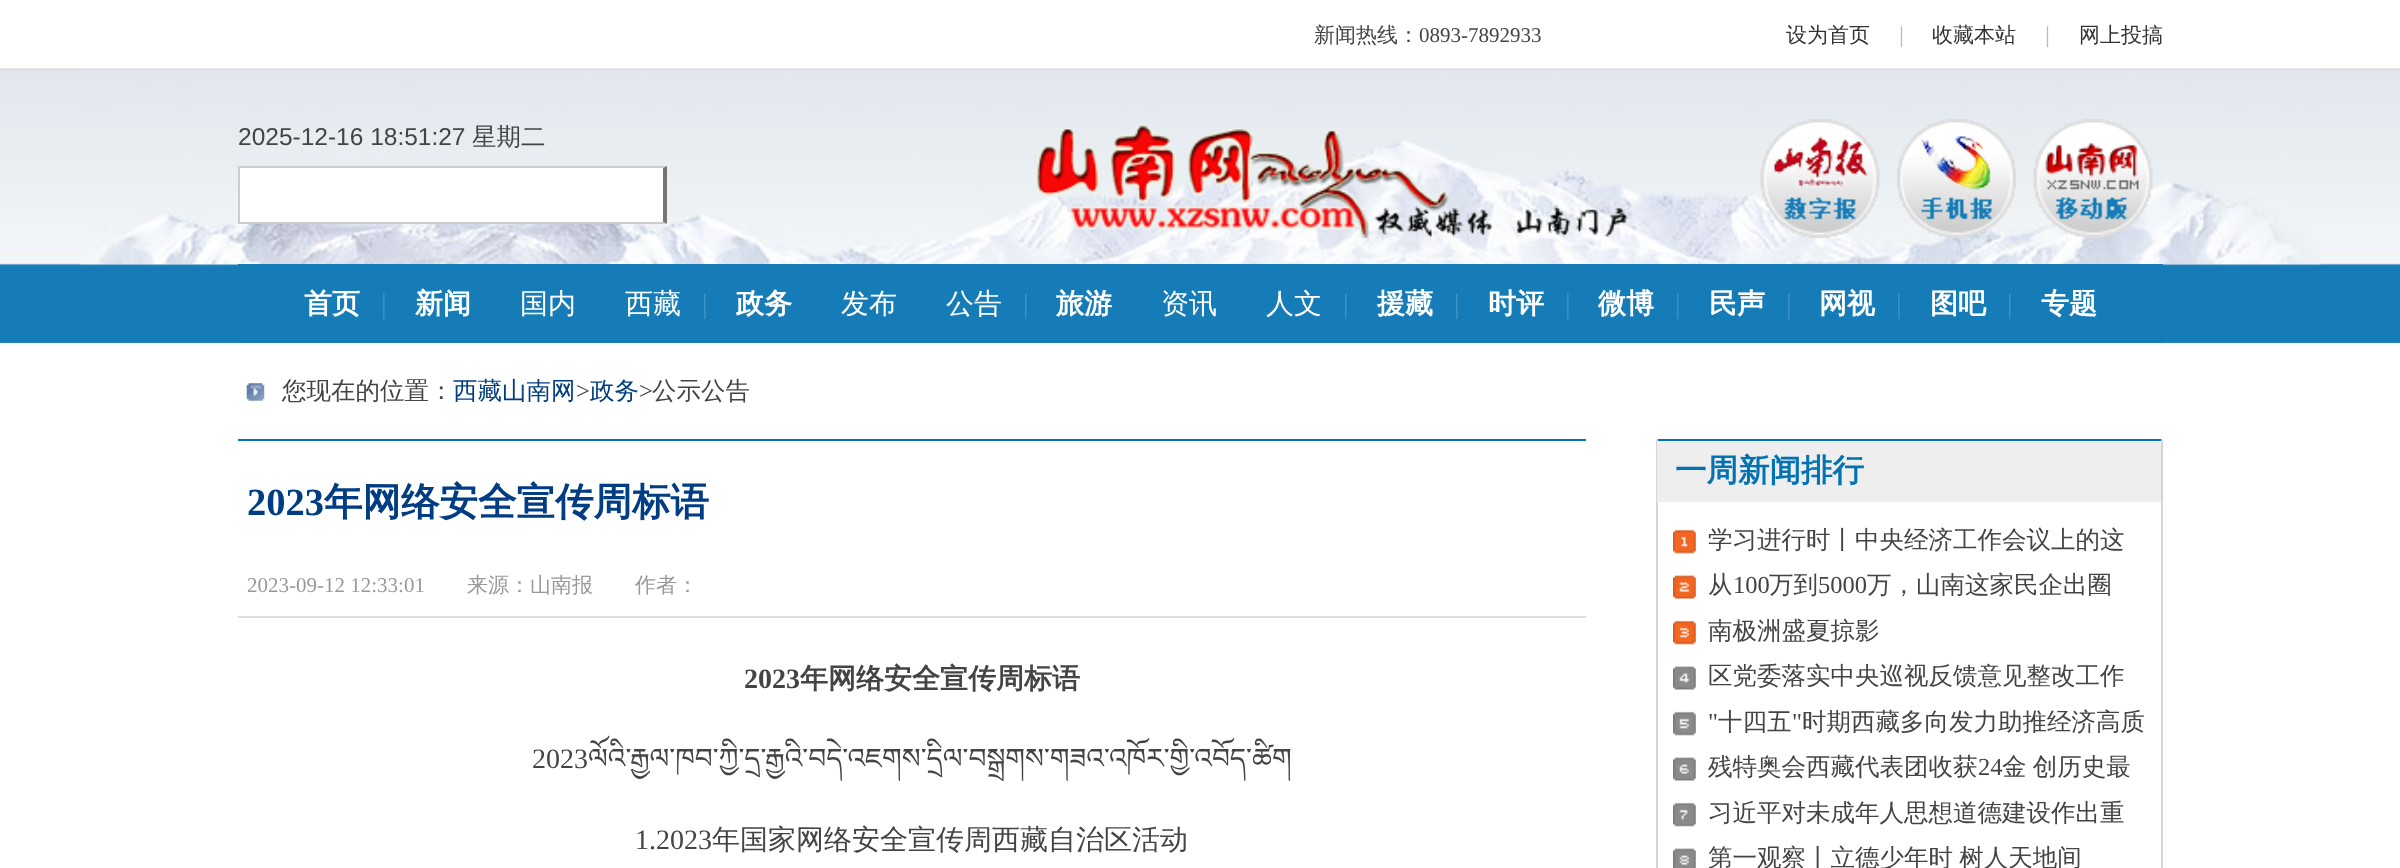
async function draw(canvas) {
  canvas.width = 2400
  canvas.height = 868
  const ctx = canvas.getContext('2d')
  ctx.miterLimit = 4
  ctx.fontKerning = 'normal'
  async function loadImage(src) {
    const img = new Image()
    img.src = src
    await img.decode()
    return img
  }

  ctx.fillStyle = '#fff'
  ctx.fillRect(0, 0, 2400, 868)
  ctx.drawImage(await loadImage('image0.png'), 0, 68, 2400, 275)
  ctx.font = '500 21px WenQuanYi Zen Hei'
  ctx.fillStyle = '#444'
  ctx.fillText('新闻热线：', 1314, 42)
  ctx.font = '21px Liberation Serif'
  ctx.fillText('0893-7892933', 1419, 42)
  ctx.font = '500 21px WenQuanYi Zen Hei'
  ctx.fillStyle = '#333'
  ctx.fillText('设为首页', 1786, 42)
  ctx.fillStyle = '#bbb'
  ctx.fillText('｜', 1891, 42)
  ctx.fillStyle = '#333'
  ctx.fillText('收藏本站', 1932, 42)
  ctx.fillStyle = '#bbb'
  ctx.fillText('｜', 2037, 42)
  ctx.fillStyle = '#333'
  ctx.fillText('网上投搞', 2079, 42)
  ctx.drawImage(await loadImage('image1.png'), 80, 70, 2241, 195)
  ctx.font = '24.5px Liberation Sans'
  ctx.fillStyle = '#444'
  ctx.fillText('2025-12-16 18:51:27', 238, 145)
  ctx.font = '500 24.5px WenQuanYi Zen Hei'
  ctx.fillText('星期二', 472, 145)
  ctx.fillStyle = '#fff'
  ctx.fillRect(240, 166, 427, 58)
  ctx.fillStyle = '#cdcdcd'
  ctx.beginPath()
  ctx.moveTo(238, 166)
  ctx.lineTo(667, 166)
  ctx.lineTo(663, 168)
  ctx.lineTo(240, 168)
  ctx.closePath()
  ctx.fill()
  ctx.fillStyle = '#767676'
  ctx.beginPath()
  ctx.moveTo(667, 166)
  ctx.lineTo(667, 224)
  ctx.lineTo(663, 222)
  ctx.lineTo(663, 168)
  ctx.closePath()
  ctx.fill()
  ctx.fillStyle = '#cdcdcd'
  ctx.beginPath()
  ctx.moveTo(667, 224)
  ctx.lineTo(238, 224)
  ctx.lineTo(240, 222)
  ctx.lineTo(663, 222)
  ctx.closePath()
  ctx.fill()
  ctx.fillRect(238, 166, 2, 58)
  ctx.drawImage(await loadImage('image2.png'), 1036, 124, 592, 114)
  ctx.drawImage(await loadImage('image3.png'), 1760, 119, 120, 119)
  ctx.drawImage(await loadImage('image4.png'), 1897, 119, 119, 119)
  ctx.drawImage(await loadImage('image5.png'), 2033, 119, 120, 119)
  ctx.fillStyle = '#157cb7'
  ctx.fillRect(238, 264, 1925, 79)
  ctx.font = 'bold 28px WenQuanYi Zen Hei'
  ctx.fillStyle = '#fff'
  ctx.fillText('首页', 304, 313)
  ctx.font = '28px Liberation Serif'
  ctx.fillStyle = '#3f93c3'
  ctx.fillText('|', 381, 313)
  ctx.font = 'bold 28px WenQuanYi Zen Hei'
  ctx.fillStyle = '#fff'
  ctx.fillText('新闻', 415, 313)
  ctx.font = '500 28px WenQuanYi Zen Hei'
  ctx.fillText('国内', 520, 313)
  ctx.fillText('西藏', 625, 313)
  ctx.font = '28px Liberation Serif'
  ctx.fillStyle = '#3f93c3'
  ctx.fillText('|', 702, 313)
  ctx.font = 'bold 28px WenQuanYi Zen Hei'
  ctx.fillStyle = '#fff'
  ctx.fillText('政务', 736, 313)
  ctx.font = '500 28px WenQuanYi Zen Hei'
  ctx.fillText('发布', 841, 313)
  ctx.fillText('公告', 946, 313)
  ctx.font = '28px Liberation Serif'
  ctx.fillStyle = '#3f93c3'
  ctx.fillText('|', 1023, 313)
  ctx.font = 'bold 28px WenQuanYi Zen Hei'
  ctx.fillStyle = '#fff'
  ctx.fillText('旅游', 1056, 313)
  ctx.font = '500 28px WenQuanYi Zen Hei'
  ctx.fillText('资讯', 1161, 313)
  ctx.fillText('人文', 1266, 313)
  ctx.font = '28px Liberation Serif'
  ctx.fillStyle = '#3f93c3'
  ctx.fillText('|', 1343, 313)
  ctx.font = 'bold 28px WenQuanYi Zen Hei'
  ctx.fillStyle = '#fff'
  ctx.fillText('援藏', 1377, 313)
  ctx.font = '28px Liberation Serif'
  ctx.fillStyle = '#3f93c3'
  ctx.fillText('|', 1454, 313)
  ctx.font = 'bold 28px WenQuanYi Zen Hei'
  ctx.fillStyle = '#fff'
  ctx.fillText('时评', 1488, 313)
  ctx.font = '28px Liberation Serif'
  ctx.fillStyle = '#3f93c3'
  ctx.fillText('|', 1565, 313)
  ctx.font = 'bold 28px WenQuanYi Zen Hei'
  ctx.fillStyle = '#fff'
  ctx.fillText('微博', 1598, 313)
  ctx.font = '28px Liberation Serif'
  ctx.fillStyle = '#3f93c3'
  ctx.fillText('|', 1675, 313)
  ctx.font = 'bold 28px WenQuanYi Zen Hei'
  ctx.fillStyle = '#fff'
  ctx.fillText('民声', 1709, 313)
  ctx.font = '28px Liberation Serif'
  ctx.fillStyle = '#3f93c3'
  ctx.fillText('|', 1786, 313)
  ctx.font = 'bold 28px WenQuanYi Zen Hei'
  ctx.fillStyle = '#fff'
  ctx.fillText('网视', 1819, 313)
  ctx.font = '28px Liberation Serif'
  ctx.fillStyle = '#3f93c3'
  ctx.fillText('|', 1896, 313)
  ctx.font = 'bold 28px WenQuanYi Zen Hei'
  ctx.fillStyle = '#fff'
  ctx.fillText('图吧', 1930, 313)
  ctx.font = '28px Liberation Serif'
  ctx.fillStyle = '#3f93c3'
  ctx.fillText('|', 2007, 313)
  ctx.font = 'bold 28px WenQuanYi Zen Hei'
  ctx.fillStyle = '#fff'
  ctx.fillText('专题', 2041, 313)
  ctx.drawImage(await loadImage('image6.png'), 246, 383, 19, 18)
  ctx.font = '500 24.5px WenQuanYi Zen Hei'
  ctx.fillStyle = '#444'
  ctx.fillText('您现在的位置：', 282, 399)
  ctx.fillStyle = '#013d82'
  ctx.fillText('西藏山南网', 453, 399)
  ctx.font = '24.5px Liberation Serif'
  ctx.fillStyle = '#444'
  ctx.fillText('>', 576, 399)
  ctx.font = '500 24.5px WenQuanYi Zen Hei'
  ctx.fillStyle = '#013d82'
  ctx.fillText('政务', 590, 399)
  ctx.font = '24.5px Liberation Serif'
  ctx.fillStyle = '#444'
  ctx.fillText('>', 639, 399)
  ctx.font = '500 24.5px WenQuanYi Zen Hei'
  ctx.fillText('公示公告', 652, 399)
  ctx.fillStyle = '#0372b2'
  ctx.fillRect(238, 439, 1348, 2)
  ctx.font = 'bold 38.5px Liberation Serif'
  ctx.fillStyle = '#013d82'
  ctx.fillText('2023', 247, 515)
  ctx.font = 'bold 38.5px WenQuanYi Zen Hei'
  ctx.fillText('年网络安全宣传周标语', 324, 515)
  ctx.fillStyle = '#ddd'
  ctx.fillRect(238, 616, 1348, 2)
  ctx.font = '21px Liberation Serif'
  ctx.fillStyle = '#999'
  ctx.fillText('2023-09-12 12:33:01', 247, 592)
  ctx.font = '500 21px WenQuanYi Zen Hei'
  ctx.fillText('来源：山南报　　作者：', 467, 592)
  ctx.font = 'bold 28px Liberation Serif'
  ctx.fillStyle = '#444'
  ctx.fillText('2023', 744, 688)
  ctx.font = 'bold 28px WenQuanYi Zen Hei'
  ctx.fillText('年网络安全宣传周标语', 800, 688)
  ctx.font = '28px Liberation Serif'
  ctx.fillText('2023', 532, 768)
  ctx.font = '28px Noto Serif Tibetan'
  ctx.fillText('ལོའི་རྒྱལ་ཁབ་ཀྱི་དྲ་རྒྱའི་བདེ་འཇགས་དྲིལ་བསྒྲགས་གཟའ་འཁོར་གྱི་འབོད་ཚིག', 588, 768)
  ctx.font = '28px Liberation Serif'
  ctx.fillText('1.2023', 635, 849)
  ctx.font = '500 28px WenQuanYi Zen Hei'
  ctx.fillText('年国家网络安全宣传周西藏自治区活动', 712, 849)
  ctx.fillStyle = '#0372b2'
  ctx.fillRect(1656, 439, 507, 2)
  ctx.fillStyle = '#d5d5d5'
  ctx.fillRect(2161, 439, 2, 429)
  ctx.fillRect(1656, 439, 2, 429)
  ctx.fillStyle = '#eee'
  ctx.fillRect(1657, 441, 504, 61)
  ctx.font = 'bold 31.5px WenQuanYi Zen Hei'
  ctx.fillStyle = '#0372b2'
  ctx.fillText('一周新闻排行', 1675, 481)
  ctx.drawImage(await loadImage('image7.png'), 1673, 529, 23, 339)
  ctx.font = '500 24.5px WenQuanYi Zen Hei'
  ctx.fillStyle = '#444'
  ctx.fillText('学习进行时丨中央经济工作会议上的这', 1708, 548)
  ctx.fillText('从', 1708, 593)
  ctx.font = '24.5px Liberation Serif'
  ctx.fillText('100', 1733, 593)
  ctx.font = '500 24.5px WenQuanYi Zen Hei'
  ctx.fillText('万到', 1769, 593)
  ctx.font = '24.5px Liberation Serif'
  ctx.fillText('5000', 1818, 593)
  ctx.font = '500 24.5px WenQuanYi Zen Hei'
  ctx.fillText('万，山南这家民企出圈', 1867, 593)
  ctx.fillText('南极洲盛夏掠影', 1708, 639)
  ctx.fillText('区党委落实中央巡视反馈意见整改工作', 1708, 684)
  ctx.font = '24.5px Liberation Serif'
  ctx.fillText('"', 1708, 730)
  ctx.font = '500 24.5px WenQuanYi Zen Hei'
  ctx.fillText('十四五', 1718, 730)
  ctx.font = '24.5px Liberation Serif'
  ctx.fillText('"', 1792, 730)
  ctx.font = '500 24.5px WenQuanYi Zen Hei'
  ctx.fillText('时期西藏多向发力助推经济高质', 1802, 730)
  ctx.fillText('残特奥会西藏代表团收获', 1708, 775)
  ctx.font = '24.5px Liberation Serif'
  ctx.fillText('24', 1978, 775)
  ctx.wordSpacing = '-1px'
  ctx.font = '500 24.5px WenQuanYi Zen Hei'
  ctx.fillText('金 创历史最', 2002, 775)
  ctx.wordSpacing = '0px'
  ctx.fillText('习近平对未成年人思想道德建设作出重', 1708, 821)
  ctx.wordSpacing = '-1px'
  ctx.fillText('第一观察丨立德少年时 树人天地间', 1708, 866)
}

draw(document.querySelector('canvas'))
